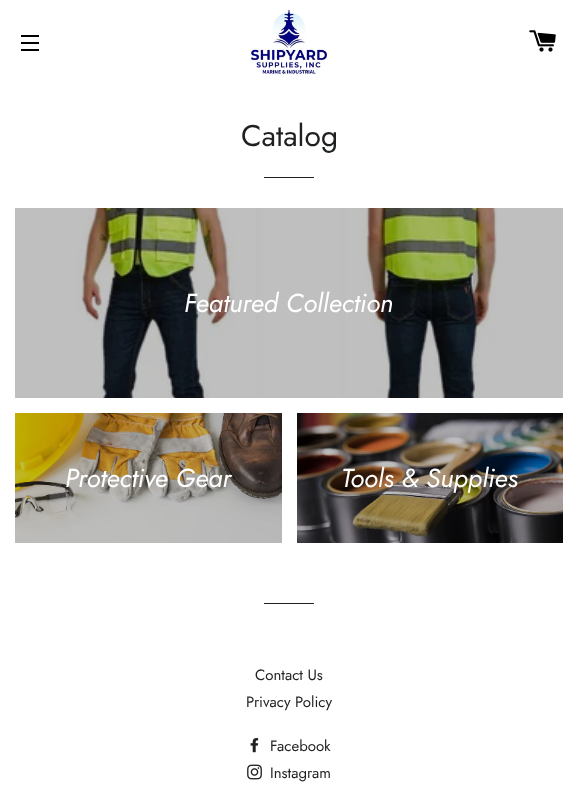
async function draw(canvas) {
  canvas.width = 578
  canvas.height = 811
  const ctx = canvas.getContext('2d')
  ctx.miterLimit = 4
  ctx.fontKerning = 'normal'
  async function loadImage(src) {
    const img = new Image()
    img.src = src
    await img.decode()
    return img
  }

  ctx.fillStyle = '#fff'
  ctx.fillRect(0, 0, 578, 811)
  ctx.fillStyle = '#bfbfbf'
  ctx.fillRect(15, 208, 548, 190)
  ctx.fillStyle = '#000'
  ctx.fillRect(21, 35, 18, 2)
  ctx.fillRect(21, 42, 18, 2)
  ctx.fillRect(21, 49, 18, 2)
  ctx.drawImage(await loadImage('image0.png'), 251, 10, 76, 65)
  ctx.drawImage(await loadImage('image1.png'), 529, 30, 27, 22)
  ctx.font = '30px Jost'
  ctx.fillStyle = '#1f2021'
  ctx.fillText('Catalog', 241, 146)
  ctx.fillRect(264, 177, 50, 1)
  ctx.drawImage(await loadImage('image2.png'), 76, 208, 421, 190)
  ctx.font = 'italic 26px Jost'
  ctx.fillStyle = '#fff'
  ctx.fillText('Featured Collection', 184, 312)
  ctx.drawImage(await loadImage('image3.png'), 15, 413, 267, 130)
  ctx.fillText('Protective Gear', 65, 487)
  ctx.drawImage(await loadImage('image4.png'), 297, 413, 266, 130)
  ctx.fillText('Tools & Supplies', 341, 487)
  ctx.fillStyle = '#1f2021'
  ctx.fillRect(264, 603, 50, 1)
  ctx.font = '15px Jost'
  ctx.fillText('Contact Us', 255, 680)
  ctx.fillText('Privacy Policy', 246, 707)
  ctx.drawImage(await loadImage('image5.png'), 250, 738, 9, 15)
  ctx.fillText('Facebook', 270, 751)
  ctx.drawImage(await loadImage('image6.png'), 247, 764, 15, 16)
  ctx.fillText('Instagram', 270, 778)
}

draw(document.querySelector('canvas'))
